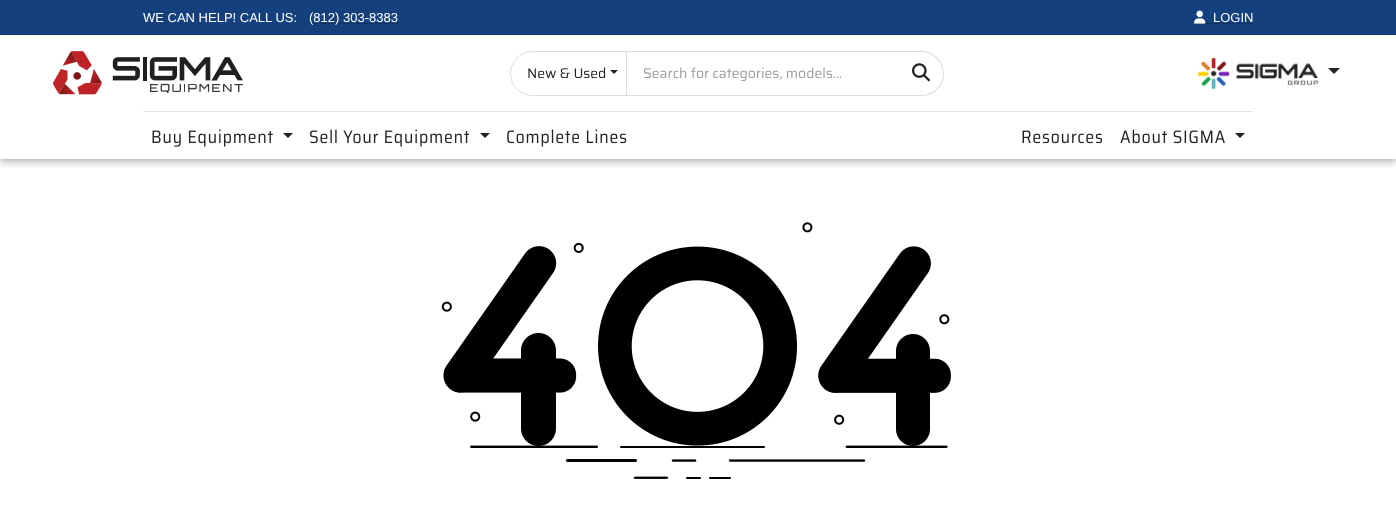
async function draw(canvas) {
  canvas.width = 1396
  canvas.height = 505
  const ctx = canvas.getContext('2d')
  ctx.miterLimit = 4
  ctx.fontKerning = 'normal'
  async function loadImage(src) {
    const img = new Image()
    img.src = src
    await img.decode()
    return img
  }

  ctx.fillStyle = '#fff'
  ctx.fillRect(0, 0, 1396, 505)
  ctx.fillStyle = '#14407d'
  ctx.fillRect(0, 0, 1396, 35)
  ctx.font = '13px Liberation Sans'
  ctx.fillStyle = '#fff'
  ctx.fillText('WE CAN HELP! CALL US:', 143, 22)
  ctx.fillStyle = '#103364'
  ctx.fillRect(309, 23, 89, 1)
  ctx.fillStyle = '#fff'
  ctx.fillText('(812) 303-8383', 309, 22)
  ctx.drawImage(await loadImage('image0.png'), 1194, 10, 12, 14)
  ctx.fillText('LOGIN', 1213, 22)
  ctx.fillStyle = '#103364'
  ctx.fillRect(1213, 23, 40, 1)
  ctx.fillStyle = '#00000033'
  ctx.fillRect(1205, 23, 8, 1)
  ctx.save()
  ctx.beginPath()
  ctx.rect(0, 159, 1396, 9)
  ctx.clip()
  ctx.fillStyle = '#00000029'
  ctx.filter = 'blur(3.5px)'
  ctx.beginPath()
  ctx.rect(0, 40, 1396, 124)
  ctx.fill()
  ctx.filter = 'none'
  ctx.restore()
  ctx.save()
  ctx.beginPath()
  ctx.moveTo(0, 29)
  ctx.lineTo(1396, 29)
  ctx.lineTo(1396, 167)
  ctx.lineTo(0, 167)
  ctx.closePath()
  ctx.moveTo(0, 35)
  ctx.lineTo(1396, 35)
  ctx.lineTo(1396, 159)
  ctx.lineTo(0, 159)
  ctx.closePath()
  ctx.clip('evenodd')
  ctx.fillStyle = '#00000029'
  ctx.filter = 'blur(2px)'
  ctx.beginPath()
  ctx.rect(0, 36, 1396, 124)
  ctx.fill()
  ctx.filter = 'none'
  ctx.restore()
  ctx.drawImage(await loadImage('image1.png'), 53, 51, 190, 44)
  ctx.beginPath()
  ctx.roundRect(510.5, 51.5, 116, 44, [22, 0, 0, 22])
  ctx.strokeStyle = '#ddd'
  ctx.stroke()
  ctx.font = '14px Saira'
  ctx.fillStyle = '#232323'
  ctx.fillText('New & Used', 527, 78)
  ctx.beginPath()
  ctx.moveTo(610, 70)
  ctx.lineTo(618, 70)
  ctx.lineTo(614, 74)
  ctx.closePath()
  ctx.fill()
  ctx.fillStyle = '#ddd'
  ctx.beginPath()
  ctx.moveTo(627, 51)
  ctx.lineTo(922, 51)
  ctx.bezierCurveTo(934, 51, 944, 61, 944, 74)
  ctx.bezierCurveTo(944, 86, 934, 96, 922, 96)
  ctx.lineTo(627, 96)
  ctx.closePath()
  ctx.moveTo(627, 52)
  ctx.lineTo(922, 52)
  ctx.bezierCurveTo(933, 52, 943, 62, 943, 74)
  ctx.bezierCurveTo(943, 85, 933, 95, 922, 95)
  ctx.lineTo(627, 95)
  ctx.closePath()
  ctx.fill('evenodd')
  ctx.fillStyle = '#9e9e9e'
  ctx.fillText('Search for categories, models...', 643, 78)
  ctx.drawImage(await loadImage('image2.png'), 912, 63, 18, 19)
  ctx.drawImage(await loadImage('image3.png'), 1198, 58, 121, 32)
  ctx.fillStyle = '#232323'
  ctx.beginPath()
  ctx.moveTo(1328, 68)
  ctx.lineTo(1340, 68)
  ctx.lineTo(1334, 74)
  ctx.closePath()
  ctx.fill()
  ctx.fillStyle = '#dee2e6'
  ctx.fillRect(143, 111, 1110, 1)
  ctx.drawImage(await loadImage('image4.png'), 152, 129, 121, 18)
  ctx.fillStyle = '#232323'
  ctx.beginPath()
  ctx.moveTo(283, 133)
  ctx.lineTo(293, 133)
  ctx.lineTo(288, 138)
  ctx.closePath()
  ctx.fill()
  ctx.drawImage(await loadImage('image5.png'), 310, 129, 160, 18)
  ctx.beginPath()
  ctx.moveTo(480, 133)
  ctx.lineTo(490, 133)
  ctx.lineTo(485, 138)
  ctx.closePath()
  ctx.fill()
  ctx.drawImage(await loadImage('image6.png'), 507, 129, 120, 18)
  ctx.drawImage(await loadImage('image7.png'), 1022, 130, 81, 14)
  ctx.drawImage(await loadImage('image8.png'), 1120, 129, 105, 15)
  ctx.beginPath()
  ctx.moveTo(1235, 133)
  ctx.lineTo(1245, 133)
  ctx.lineTo(1240, 138)
  ctx.closePath()
  ctx.fill()
  ctx.drawImage(await loadImage('image9.png'), 441, 222, 510, 257)
}

draw(document.querySelector('canvas'))
